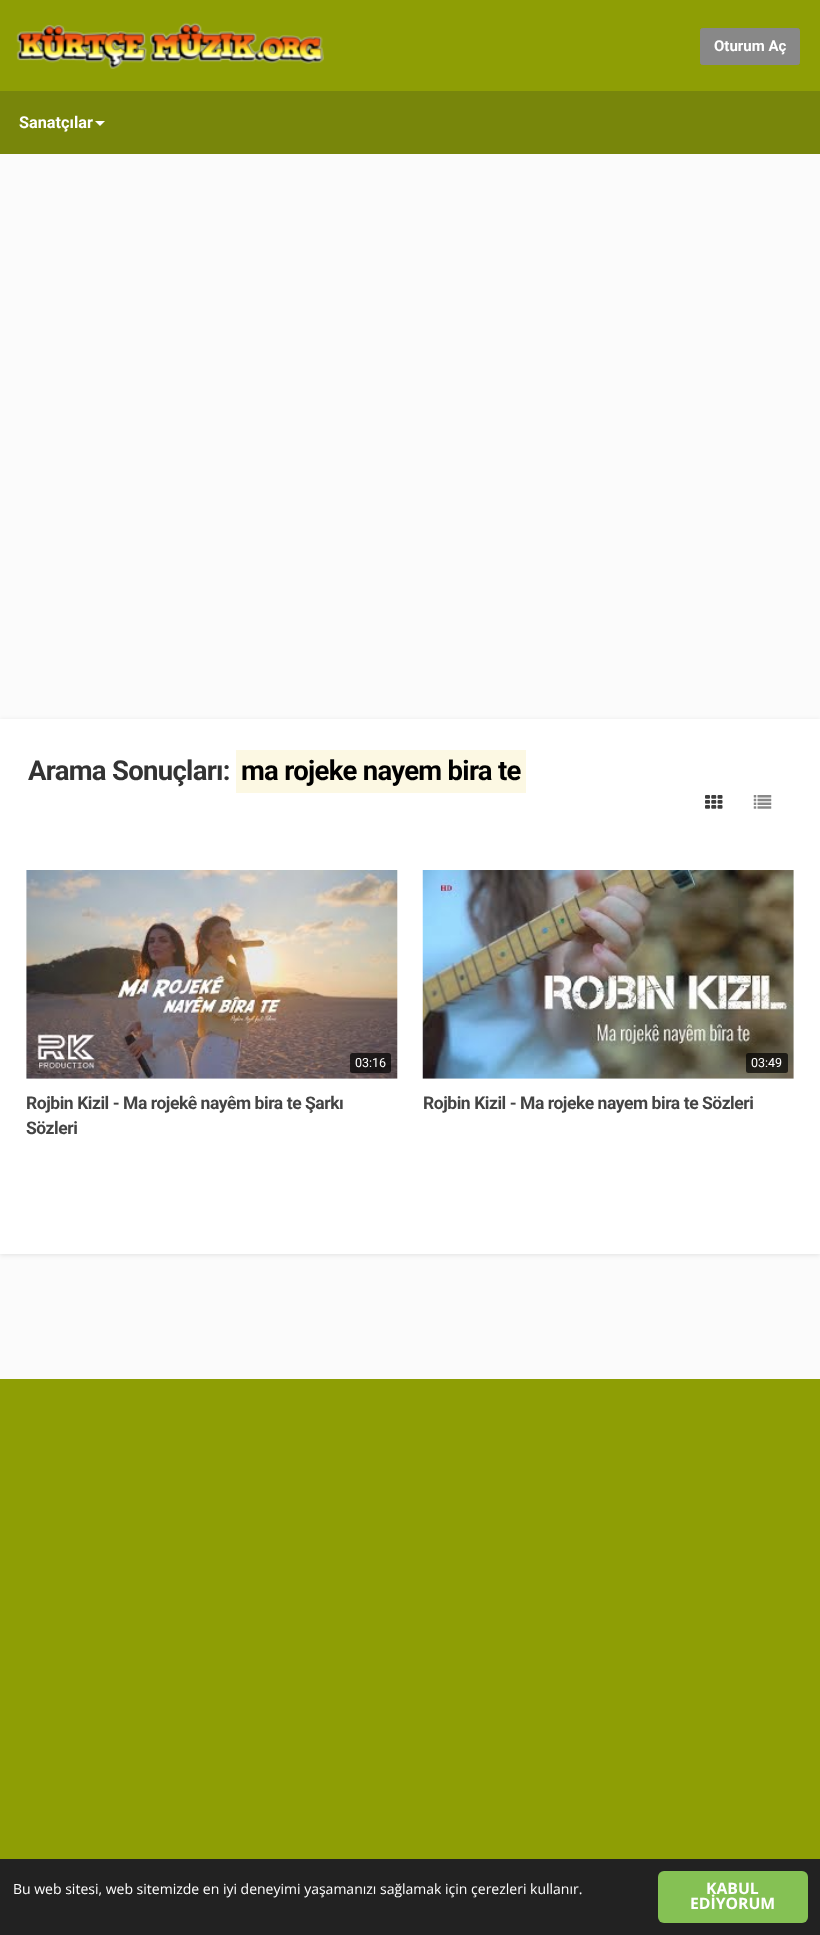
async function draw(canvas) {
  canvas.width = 820
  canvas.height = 1935
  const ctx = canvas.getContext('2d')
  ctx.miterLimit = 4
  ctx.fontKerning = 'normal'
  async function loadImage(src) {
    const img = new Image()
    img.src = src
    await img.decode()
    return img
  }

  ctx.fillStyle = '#fbfbfb'
  ctx.fillRect(0, 0, 820, 1935)
  ctx.fillStyle = '#8e9e05'
  ctx.fillRect(0, 0, 820, 91)
  ctx.drawImage(await loadImage('image0.png'), 16, 22, 308, 47)
  ctx.fillStyle = '#888'
  ctx.beginPath()
  ctx.roundRect(700.5, 28.5, 99, 36, 2)
  ctx.fill()
  ctx.strokeStyle = '#888'
  ctx.stroke()
  ctx.font = 'bold 15px Roboto'
  ctx.fillStyle = '#fff'
  ctx.fillText('Oturum Aç', 714, 51)
  ctx.fillStyle = '#78860b'
  ctx.fillRect(0, 91, 820, 63)
  ctx.font = 'bold 16.25px Roboto'
  ctx.fillStyle = '#fff'
  ctx.fillText('Sanatçılar', 19, 128)
  ctx.beginPath()
  ctx.moveTo(95, 121)
  ctx.lineTo(105, 121)
  ctx.lineTo(100, 126)
  ctx.closePath()
  ctx.fill()
  ctx.fillStyle = '#0000001a'
  ctx.filter = 'blur(2.5px)'
  ctx.beginPath()
  ctx.rect(0, 720, 820, 535)
  ctx.fill()
  ctx.filter = 'none'
  ctx.fillStyle = '#fff'
  ctx.fillRect(0, 719, 820, 535)
  ctx.letterSpacing = '-0.7px'
  ctx.font = 'bold 27.5px Roboto'
  ctx.fillStyle = '#333'
  ctx.fillText('Arama Sonuçları:', 28, 780)
  ctx.fillStyle = '#fcf8e3'
  ctx.fillRect(236, 750, 290, 43)
  ctx.fillStyle = '#000'
  ctx.fillText('ma rojeke nayem bira te', 241, 780)
  ctx.drawImage(await loadImage('image1.png'), 705, 795, 18, 14)
  ctx.drawImage(await loadImage('image2.png'), 753, 795, 19, 14)
  ctx.fillStyle = '#fafafa'
  ctx.fillRect(26, 870, 372, 209)
  ctx.drawImage(await loadImage('image3.png'), 26, 870, 372, 209)
  ctx.fillStyle = '#000000b3'
  ctx.beginPath()
  ctx.roundRect(350, 1053, 41, 20, 2.5)
  ctx.fill()
  ctx.letterSpacing = '0px'
  ctx.font = '12.5px Roboto'
  ctx.fillStyle = '#fff'
  ctx.fillText('03:16', 355, 1067)
  ctx.letterSpacing = '-0.45px'
  ctx.font = 'bold 17.5px Roboto'
  ctx.fillStyle = '#444'
  ctx.fillText('Rojbin Kizil - Ma rojekê nayêm bira te Şarkı', 26, 1109)
  ctx.fillText('Sözleri', 26, 1134)
  ctx.fillStyle = '#fafafa'
  ctx.fillRect(423, 870, 371, 209)
  ctx.drawImage(await loadImage('image4.png'), 422, 870, 372, 209)
  ctx.fillStyle = '#000000b3'
  ctx.beginPath()
  ctx.roundRect(746, 1053, 42, 20, 2.5)
  ctx.fill()
  ctx.letterSpacing = '0px'
  ctx.font = '12.5px Roboto'
  ctx.fillStyle = '#fff'
  ctx.fillText('03:49', 751, 1067)
  ctx.letterSpacing = '-0.45px'
  ctx.font = 'bold 17.5px Roboto'
  ctx.fillStyle = '#444'
  ctx.fillText('Rojbin Kizil - Ma rojeke nayem bira te Sözleri', 423, 1109)
  ctx.fillStyle = '#8e9e05'
  ctx.fillRect(0, 1379, 820, 480)
  ctx.fillStyle = '#222'
  ctx.fillRect(0, 1859, 820, 76)
  ctx.letterSpacing = '0px'
  ctx.font = '14px Open Sans'
  ctx.fillStyle = '#fff'
  ctx.fillText('Bu web sitesi, web sitemizde en iyi deneyimi yaşamanızı sağlamak için çerezleri kullanır.', 13, 1894)
  ctx.fillStyle = '#85c154'
  ctx.beginPath()
  ctx.roundRect(658, 1871, 150, 52, 6)
  ctx.fill()
  ctx.font = 'bold 15.75px Open Sans'
  ctx.fillStyle = '#fff'
  ctx.fillText('KABUL', 706, 1894)
  ctx.fillText('EDİYORUM', 690, 1909)
}

draw(document.querySelector('canvas'))
